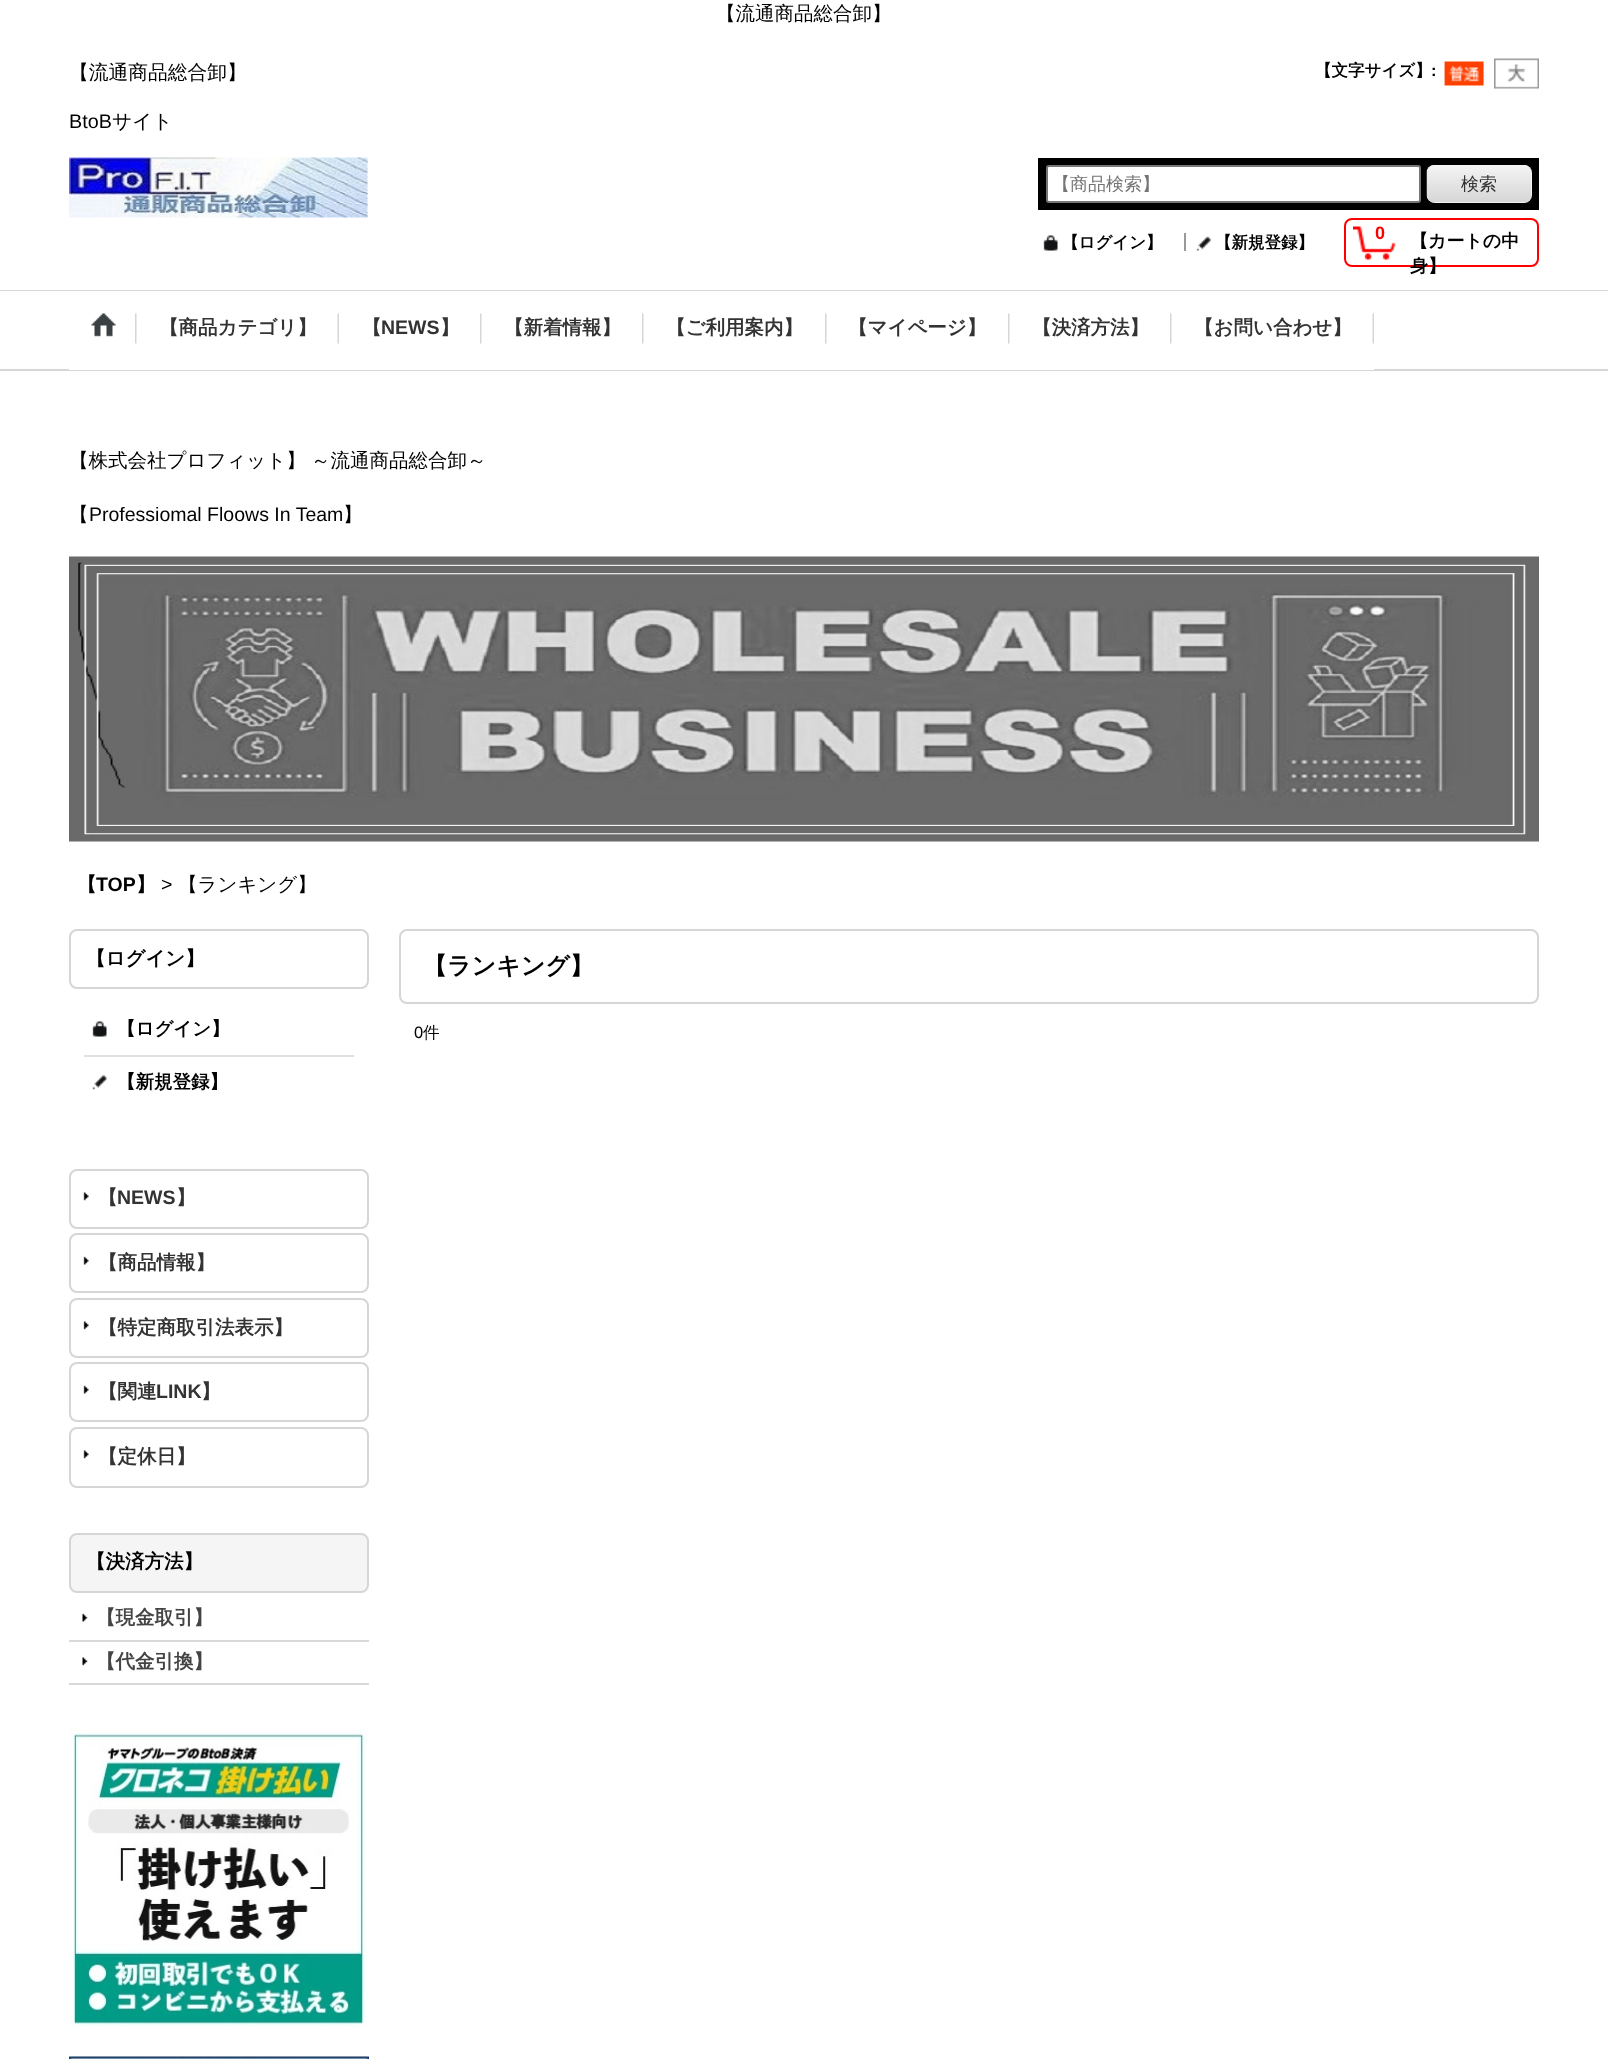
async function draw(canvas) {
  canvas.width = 1608
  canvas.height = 2059
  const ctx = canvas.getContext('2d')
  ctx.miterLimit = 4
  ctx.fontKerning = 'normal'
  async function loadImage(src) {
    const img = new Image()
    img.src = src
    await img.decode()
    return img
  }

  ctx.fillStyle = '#fff'
  ctx.fillRect(0, 0, 1608, 2059)
  ctx.font = '500 19.5px WenQuanYi Zen Hei'
  ctx.fillStyle = '#000'
  ctx.fillText('【流通商品総合卸】', 716, 20)
  ctx.fillStyle = '#d6d6d6'
  ctx.fillRect(0, 290, 1608, 1)
  ctx.font = '500 19.75px WenQuanYi Zen Hei'
  ctx.fillStyle = '#000'
  ctx.fillText('【流通商品総合卸】', 69, 79)
  ctx.font = '19.75px Liberation Sans'
  ctx.fillText('BtoB', 69, 128)
  ctx.font = '500 19.75px WenQuanYi Zen Hei'
  ctx.fillText('サイト', 112, 128)
  ctx.font = 'bold 16.5px WenQuanYi Zen Hei'
  ctx.fillText('【文字サイズ】', 1315, 76)
  ctx.font = 'bold 16.5px Liberation Sans'
  ctx.fillText(':', 1431, 76)
  ctx.drawImage(await loadImage('image0.png'), 1444, 61, 40, 25)
  ctx.drawImage(await loadImage('image1.png'), 1494, 58, 45, 31)
  ctx.drawImage(await loadImage('image2.png'), 69, 157, 299, 61)
  ctx.fillRect(1038, 158, 501, 52)
  ctx.fillStyle = '#fff'
  ctx.beginPath()
  ctx.roundRect(1047, 166, 373, 36, 2)
  ctx.fill()
  ctx.strokeStyle = '#767676'
  ctx.lineWidth = 2
  ctx.stroke()
  ctx.font = '500 18px WenQuanYi Zen Hei'
  ctx.fillStyle = '#757575'
  ctx.fillText('【商品検索】', 1052, 190)
  ctx.fillStyle = '#f9f9f9'
  ctx.beginPath()
  ctx.roundRect(1427, 165, 105, 38, 8)
  ctx.fill()
  ctx.drawImage(await loadImage('image3.png'), 1426, 165, 106, 38)
  ctx.fillStyle = '#333'
  ctx.fillText('検索', 1461, 190)
  ctx.drawImage(await loadImage('image4.png'), 1043, 235, 15, 16)
  ctx.font = 'bold 16.5px WenQuanYi Zen Hei'
  ctx.fillStyle = '#000'
  ctx.fillText('【ログイン】', 1062, 248)
  ctx.fillStyle = '#999'
  ctx.fillRect(1184, 233, 2, 18)
  ctx.drawImage(await loadImage('image5.png'), 1196, 236, 15, 15)
  ctx.fillStyle = '#000'
  ctx.fillText('【新規登録】', 1215, 248)
  ctx.beginPath()
  ctx.roundRect(1345, 219, 193, 47, 7)
  ctx.strokeStyle = '#f00'
  ctx.stroke()
  ctx.drawImage(await loadImage('image6.png'), 1353, 226, 43, 34)
  ctx.font = 'bold 18px Liberation Sans'
  ctx.fillStyle = '#f00'
  ctx.fillText('0', 1375, 239)
  ctx.font = 'bold 18px WenQuanYi Zen Hei'
  ctx.fillStyle = '#000'
  ctx.fillText('【カートの中', 1410, 247)
  ctx.fillText('身】', 1410, 272)
  ctx.fillStyle = '#d6d6d6'
  ctx.fillRect(0, 369, 1608, 2)
  ctx.drawImage(await loadImage('image7.png'), 135, 313, 2, 31)
  ctx.fillStyle = '#fff'
  ctx.fillRect(69, 369, 1305, 1)
  ctx.drawImage(await loadImage('image8.png'), 91, 313, 25, 24)
  ctx.drawImage(await loadImage('image9.png'), 337, 313, 2, 31)
  ctx.font = 'bold 19.5px WenQuanYi Zen Hei'
  ctx.fillStyle = '#333'
  ctx.fillText('【商品カテゴリ】', 159, 334)
  ctx.drawImage(await loadImage('image7.png'), 480, 313, 2, 31)
  ctx.fillText('【', 362, 334)
  ctx.font = 'bold 19.5px Liberation Sans'
  ctx.fillText('NEWS', 381, 334)
  ctx.font = 'bold 19.5px WenQuanYi Zen Hei'
  ctx.fillText('】', 440, 334)
  ctx.drawImage(await loadImage('image7.png'), 642, 313, 2, 31)
  ctx.fillText('【新着情報】', 504, 334)
  ctx.drawImage(await loadImage('image7.png'), 825, 313, 2, 31)
  ctx.fillText('【ご利用案内】', 666, 334)
  ctx.drawImage(await loadImage('image7.png'), 1008, 313, 2, 31)
  ctx.fillText('【マイページ】', 848, 334)
  ctx.drawImage(await loadImage('image7.png'), 1170, 313, 2, 31)
  ctx.fillText('【決済方法】', 1032, 334)
  ctx.drawImage(await loadImage('image9.png'), 1372, 313, 2, 31)
  ctx.fillText('【お問い合わせ】', 1194, 334)
  ctx.font = '500 19.5px WenQuanYi Zen Hei'
  ctx.fillStyle = '#000'
  ctx.fillText('【株式会社プロフィット】', 69, 467)
  ctx.fillText('～流通商品総合卸～', 311, 467)
  ctx.fillText('【', 69, 521)
  ctx.font = '19.5px Liberation Sans'
  ctx.fillText('Professiomal Floows In Team', 89, 521)
  ctx.font = '500 19.5px WenQuanYi Zen Hei'
  ctx.fillText('】', 343, 521)
  ctx.drawImage(await loadImage('image10.png'), 69, 556, 1470, 286)
  ctx.font = 'bold 19.5px WenQuanYi Zen Hei'
  ctx.fillText('【', 77, 891)
  ctx.font = 'bold 19.5px Liberation Sans'
  ctx.fillText('TOP', 96, 891)
  ctx.font = 'bold 19.5px WenQuanYi Zen Hei'
  ctx.fillText('】', 136, 891)
  ctx.font = '19.5px Liberation Sans'
  ctx.fillText('>', 161, 891)
  ctx.font = '500 19.5px WenQuanYi Zen Hei'
  ctx.fillText('【ランキング】', 178, 891)
  ctx.beginPath()
  ctx.roundRect(70, 930, 298, 58, 7)
  ctx.strokeStyle = '#d6d6d6'
  ctx.stroke()
  ctx.font = 'bold 19.5px WenQuanYi Zen Hei'
  ctx.fillText('【ログイン】', 86, 965)
  ctx.drawImage(await loadImage('image11.png'), 92, 1021, 15, 16)
  ctx.fillStyle = '#e0dfe3'
  ctx.fillRect(84, 1055, 270, 2)
  ctx.font = 'bold 18.5px WenQuanYi Zen Hei'
  ctx.fillStyle = '#000'
  ctx.fillText('【ログイン】', 117, 1035)
  ctx.drawImage(await loadImage('image12.png'), 92, 1075, 15, 15)
  ctx.fillText('【新規登録】', 117, 1088)
  ctx.beginPath()
  ctx.roundRect(70, 1170, 298, 58, 7)
  ctx.stroke()
  ctx.drawImage(await loadImage('image13.png'), 83, 1192, 6, 9)
  ctx.font = 'bold 19.5px WenQuanYi Zen Hei'
  ctx.fillStyle = '#333'
  ctx.fillText('【', 98, 1204)
  ctx.font = 'bold 19.5px Liberation Sans'
  ctx.fillText('NEWS', 117, 1204)
  ctx.font = 'bold 19.5px WenQuanYi Zen Hei'
  ctx.fillText('】', 176, 1204)
  ctx.beginPath()
  ctx.roundRect(70, 1234, 298, 58, 7)
  ctx.stroke()
  ctx.drawImage(await loadImage('image14.png'), 83, 1256, 6, 9)
  ctx.fillText('【商品情報】', 98, 1269)
  ctx.beginPath()
  ctx.roundRect(70, 1299, 298, 58, 7)
  ctx.stroke()
  ctx.drawImage(await loadImage('image13.png'), 83, 1321, 6, 9)
  ctx.fillText('【特定商取引法表示】', 98, 1334)
  ctx.beginPath()
  ctx.roundRect(70, 1363, 298, 58, 7)
  ctx.stroke()
  ctx.drawImage(await loadImage('image14.png'), 83, 1385, 6, 9)
  ctx.fillText('【関連', 98, 1398)
  ctx.font = 'bold 19.5px Liberation Sans'
  ctx.fillText('LINK', 156, 1398)
  ctx.font = 'bold 19.5px WenQuanYi Zen Hei'
  ctx.fillText('】', 201, 1398)
  ctx.beginPath()
  ctx.roundRect(70, 1428, 298, 59, 7)
  ctx.stroke()
  ctx.drawImage(await loadImage('image13.png'), 83, 1450, 6, 9)
  ctx.fillText('【定休日】', 98, 1463)
  ctx.fillStyle = '#f5f5f5'
  ctx.beginPath()
  ctx.roundRect(70, 1534, 298, 58, 7)
  ctx.fill()
  ctx.stroke()
  ctx.fillStyle = '#000'
  ctx.fillText('【決済方法】', 86, 1568)
  ctx.fillStyle = '#d9d9d9'
  ctx.fillRect(69, 1640, 300, 2)
  ctx.drawImage(await loadImage('image15.png'), 82, 1613, 6, 9)
  ctx.fillStyle = '#444'
  ctx.fillText('【現金取引】', 96, 1624)
  ctx.fillStyle = '#d9d9d9'
  ctx.fillRect(69, 1683, 300, 2)
  ctx.drawImage(await loadImage('image16.png'), 82, 1657, 6, 9)
  ctx.fillStyle = '#444'
  ctx.fillText('【代金引換】', 96, 1668)
  ctx.drawImage(await loadImage('image17.png'), 69, 1729, 299, 300)
  ctx.drawImage(await loadImage('image18.png'), 69, 2056, 300, 3)
  ctx.beginPath()
  ctx.roundRect(400, 930, 1138, 73, 7)
  ctx.stroke()
  ctx.font = 'bold 24px WenQuanYi Zen Hei'
  ctx.fillStyle = '#000'
  ctx.fillText('【ランキング】', 423, 974)
  ctx.font = '16.5px Liberation Sans'
  ctx.fillText('0', 414, 1038)
  ctx.font = '500 16.5px WenQuanYi Zen Hei'
  ctx.fillText('件', 423, 1038)
}

draw(document.querySelector('canvas'))
